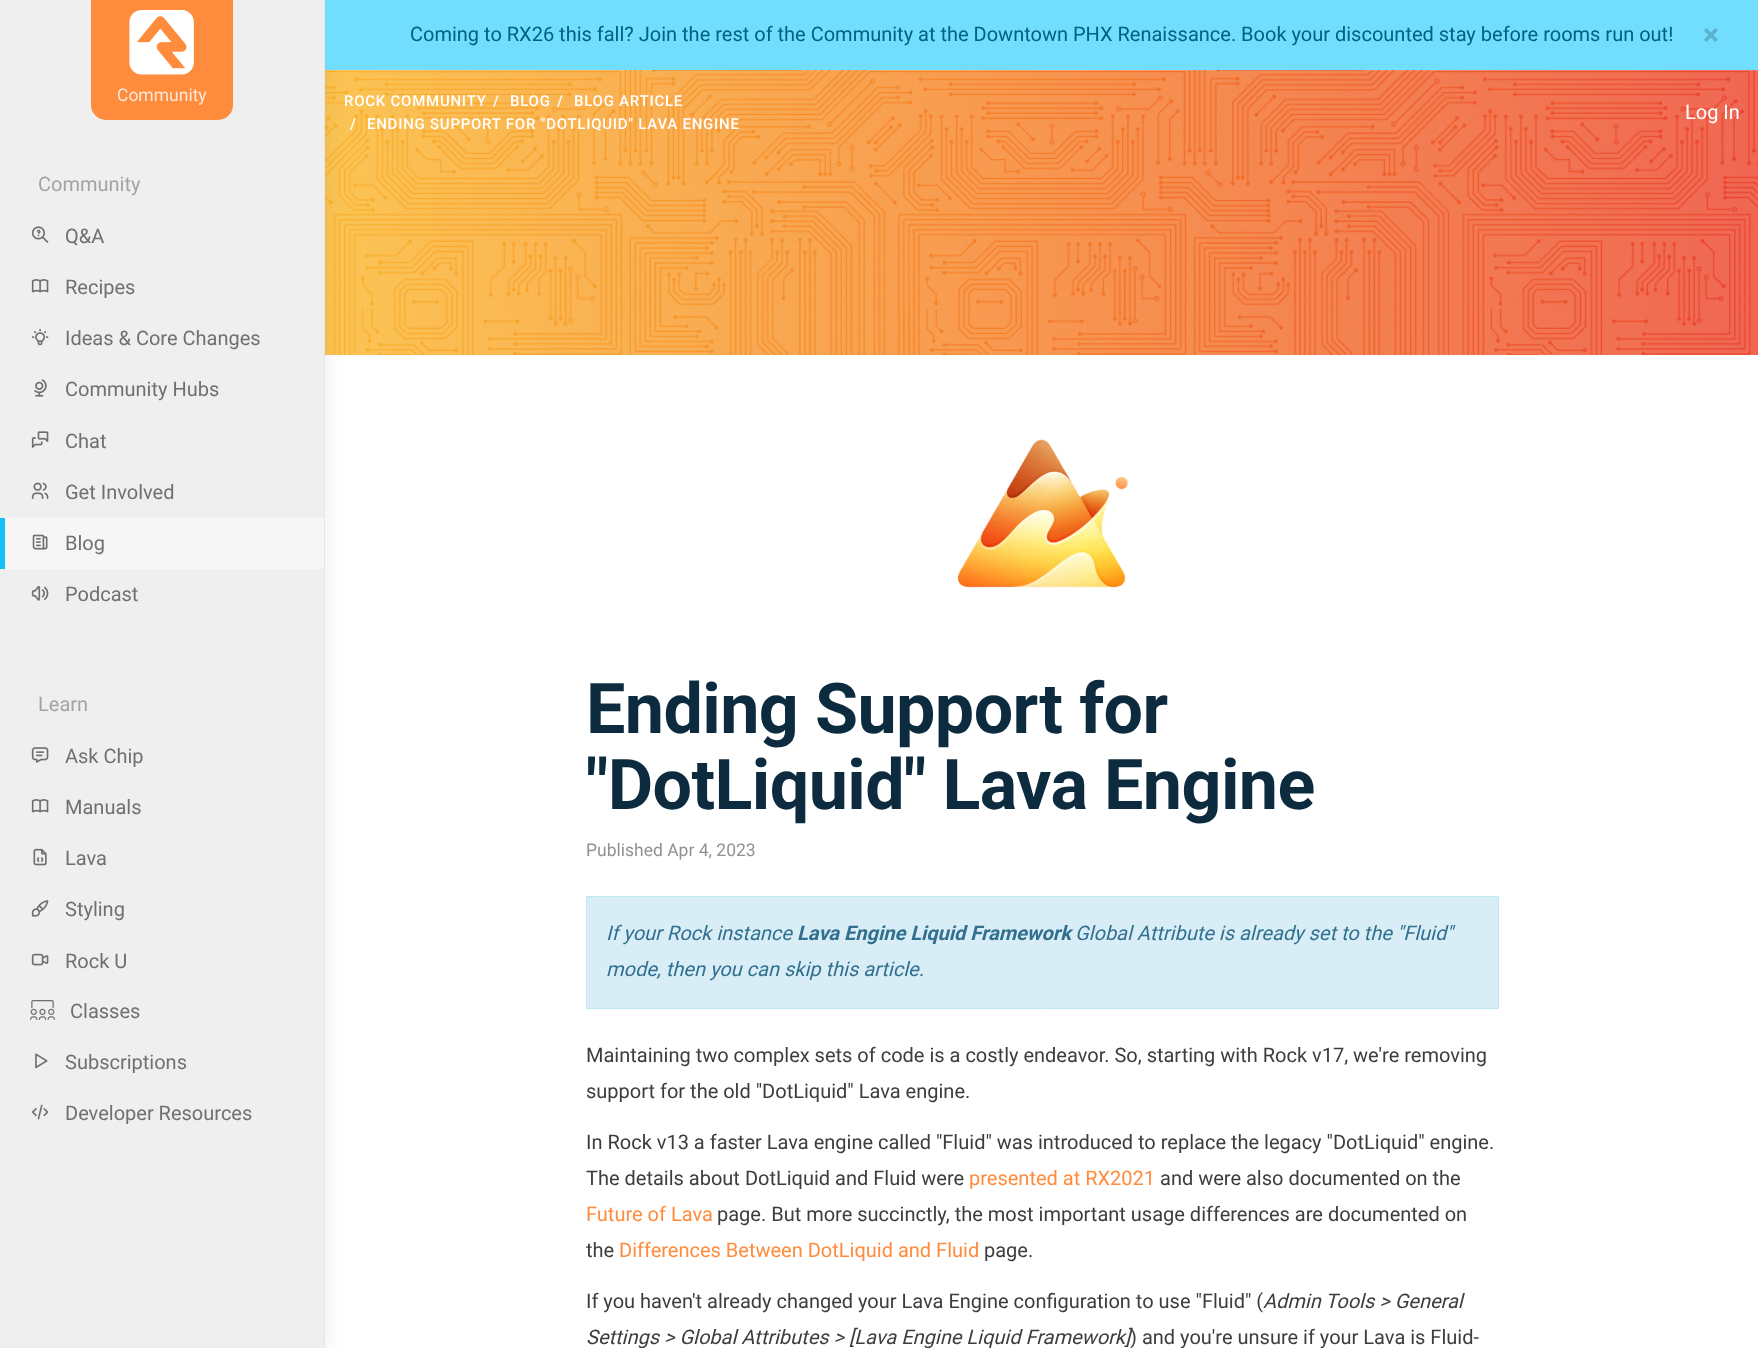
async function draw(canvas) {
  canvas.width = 1758
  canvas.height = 1348
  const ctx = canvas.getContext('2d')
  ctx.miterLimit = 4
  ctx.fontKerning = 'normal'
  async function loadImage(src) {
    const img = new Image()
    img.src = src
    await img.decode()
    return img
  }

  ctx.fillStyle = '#fff'
  ctx.fillRect(0, 0, 1758, 1348)
  ctx.drawImage(await loadImage('image16.png'), 325, 70, 1433, 285)
  ctx.fillStyle = '#0000000d'
  ctx.filter = 'blur(9.5px)'
  ctx.beginPath()
  ctx.rect(-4, -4, 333, 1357)
  ctx.fill()
  ctx.filter = 'none'
  ctx.fillStyle = '#efefef'
  ctx.fillRect(0, 0, 324, 1348)
  ctx.fillStyle = '#e5e5e5'
  ctx.fillRect(324, 0, 1, 1348)
  ctx.fillStyle = '#ff8c3d'
  ctx.beginPath()
  ctx.roundRect(91, 0, 142, 120, [0, 0, 15, 15])
  ctx.fill()
  ctx.drawImage(await loadImage('image0.png'), 129, 10, 65, 65)
  ctx.font = '17.5px Roboto'
  ctx.fillStyle = '#ffe8d8'
  ctx.fillText('Community', 117, 101)
  ctx.font = '20px Roboto'
  ctx.fillStyle = '#a3a3a3'
  ctx.fillText('Community', 38, 191)
  ctx.drawImage(await loadImage('image1.png'), 31, 226, 18, 17)
  ctx.fillStyle = '#707070'
  ctx.fillText('Q&A', 65, 243)
  ctx.drawImage(await loadImage('image2.png'), 31, 279, 18, 14)
  ctx.fillText('Recipes', 65, 294)
  ctx.drawImage(await loadImage('image3.png'), 31, 328, 18, 18)
  ctx.fillText('Ideas & Core Changes', 65, 345)
  ctx.drawImage(await loadImage('image4.png'), 34, 379, 13, 18)
  ctx.fillText('Community Hubs', 65, 396)
  ctx.drawImage(await loadImage('image5.png'), 31, 431, 18, 17)
  ctx.fillText('Chat', 65, 448)
  ctx.drawImage(await loadImage('image6.png'), 31, 482, 18, 18)
  ctx.fillText('Get Involved', 65, 499)
  ctx.fillStyle = '#f6f6f6'
  ctx.fillRect(5, 518, 319, 51)
  ctx.fillStyle = '#14bff3'
  ctx.fillRect(0, 518, 5, 51)
  ctx.drawImage(await loadImage('image7.png'), 32, 534, 16, 16)
  ctx.fillStyle = '#707070'
  ctx.fillText('Blog', 65, 550)
  ctx.drawImage(await loadImage('image8.png'), 31, 586, 18, 15)
  ctx.fillText('Podcast', 65, 601)
  ctx.fillStyle = '#a3a3a3'
  ctx.fillText('Learn', 38, 711)
  ctx.drawImage(await loadImage('image9.png'), 31, 747, 18, 16)
  ctx.fillStyle = '#707070'
  ctx.fillText('Ask Chip', 65, 763)
  ctx.drawImage(await loadImage('image2.png'), 31, 799, 18, 14)
  ctx.fillText('Manuals', 65, 814)
  ctx.drawImage(await loadImage('image10.png'), 33, 848, 14, 18)
  ctx.fillText('Lava', 65, 865)
  ctx.drawImage(await loadImage('image11.png'), 31, 900, 18, 17)
  ctx.fillText('Styling', 65, 916)
  ctx.drawImage(await loadImage('image12.png'), 31, 953, 18, 13)
  ctx.fillText('Rock U', 65, 968)
  ctx.drawImage(await loadImage('image13.png'), 30, 1000, 25, 20)
  ctx.fillText('Classes', 70, 1018)
  ctx.drawImage(await loadImage('image14.png'), 35, 1053, 13, 16)
  ctx.fillText('Subscriptions', 65, 1069)
  ctx.drawImage(await loadImage('image15.png'), 31, 1104, 18, 16)
  ctx.fillText('Developer Resources', 65, 1120)
  ctx.fillStyle = '#72deff'
  ctx.fillRect(325, 0, 1433, 70)
  ctx.fillStyle = '#00627f'
  ctx.fillText('Coming to RX26 this fall? Join the rest of the Community at the Downtown PHX Renaissance. Book your discounted stay before rooms run out!', 410, 41)
  ctx.font = 'bold 30px Roboto'
  ctx.fillStyle = '#5bb2cc'
  ctx.fillText('×', 1703, 45)
  ctx.letterSpacing = '0.75px'
  ctx.font = '500 15px Roboto'
  ctx.fillStyle = '#fff'
  ctx.fillText('ROCK COMMUNITY', 344, 106)
  ctx.fillText('/', 493, 106)
  ctx.fillText('BLOG', 510, 106)
  ctx.fillText('/', 557, 106)
  ctx.fillText('BLOG ARTICLE', 574, 106)
  ctx.fillText('/', 350, 129)
  ctx.fillText('ENDING SUPPORT FOR "DOTLIQUID" LAVA ENGINE', 367, 129)
  ctx.letterSpacing = '0px'
  ctx.font = '20px Roboto'
  ctx.fillText('Log In', 1685, 119)
  ctx.drawImage(await loadImage('image17.png'), 956, 438, 172, 151)
  ctx.letterSpacing = '-0.6px'
  ctx.font = 'bold 70px Roboto'
  ctx.fillStyle = '#0d2b3e'
  ctx.fillText('Ending Support for', 586, 733)
  ctx.fillText('"DotLiquid" Lava Engine', 586, 809)
  ctx.letterSpacing = '0px'
  ctx.font = '17.5px Roboto'
  ctx.fillStyle = '#919191'
  ctx.fillText('Published Apr 4, 2023', 586, 856)
  ctx.fillStyle = '#d9edf7'
  ctx.beginPath()
  ctx.rect(586.5, 896.5, 912, 112)
  ctx.fill()
  ctx.strokeStyle = '#bce8f1'
  ctx.stroke()
  ctx.font = 'italic 20px Roboto'
  ctx.fillStyle = '#31708f'
  ctx.fillText('If your Rock instance', 606, 940)
  ctx.font = 'italic bold 20px Roboto'
  ctx.fillText('Lava Engine Liquid Framework', 797, 940)
  ctx.font = 'italic 20px Roboto'
  ctx.fillText('Global Attribute is already set to the "Fluid"', 1075, 940)
  ctx.fillText('mode, then you can skip this article.', 606, 976)
  ctx.font = '20px Roboto'
  ctx.fillStyle = '#3d3d3d'
  ctx.fillText('Maintaining two complex sets of code is a costly endeavor. So, starting with Rock v17, we\'re removing', 586, 1062)
  ctx.fillText('support for the old "DotLiquid" Lava engine.', 586, 1098)
  ctx.fillText('In Rock v13 a faster Lava engine called "Fluid" was introduced to replace the legacy "DotLiquid" engine.', 586, 1149)
  ctx.fillText('The details about DotLiquid and Fluid were', 586, 1185)
  ctx.fillStyle = '#ff8c3d'
  ctx.fillText('presented at RX2021', 969, 1185)
  ctx.fillStyle = '#3d3d3d'
  ctx.fillText('and were also documented on the', 1160, 1185)
  ctx.fillStyle = '#ff8c3d'
  ctx.fillText('Future of Lava', 586, 1221)
  ctx.fillStyle = '#3d3d3d'
  ctx.fillText('page. But more succinctly, the most important usage differences are documented on', 717, 1221)
  ctx.fillText('the', 586, 1257)
  ctx.fillStyle = '#ff8c3d'
  ctx.fillText('Differences Between DotLiquid and Fluid', 619, 1257)
  ctx.fillStyle = '#3d3d3d'
  ctx.fillText('page.', 984, 1257)
  ctx.fillText('If you haven\'t already changed your Lava Engine configuration to use "Fluid" (', 586, 1308)
  ctx.font = 'italic 20px Roboto'
  ctx.fillText('Admin Tools > General', 1263, 1308)
  ctx.fillText('Settings > Global Attributes > [Lava Engine Liquid Framework]', 586, 1344)
  ctx.font = '20px Roboto'
  ctx.fillText(') and you\'re unsure if your Lava is Fluid-', 1130, 1344)
}

draw(document.querySelector('canvas'))
